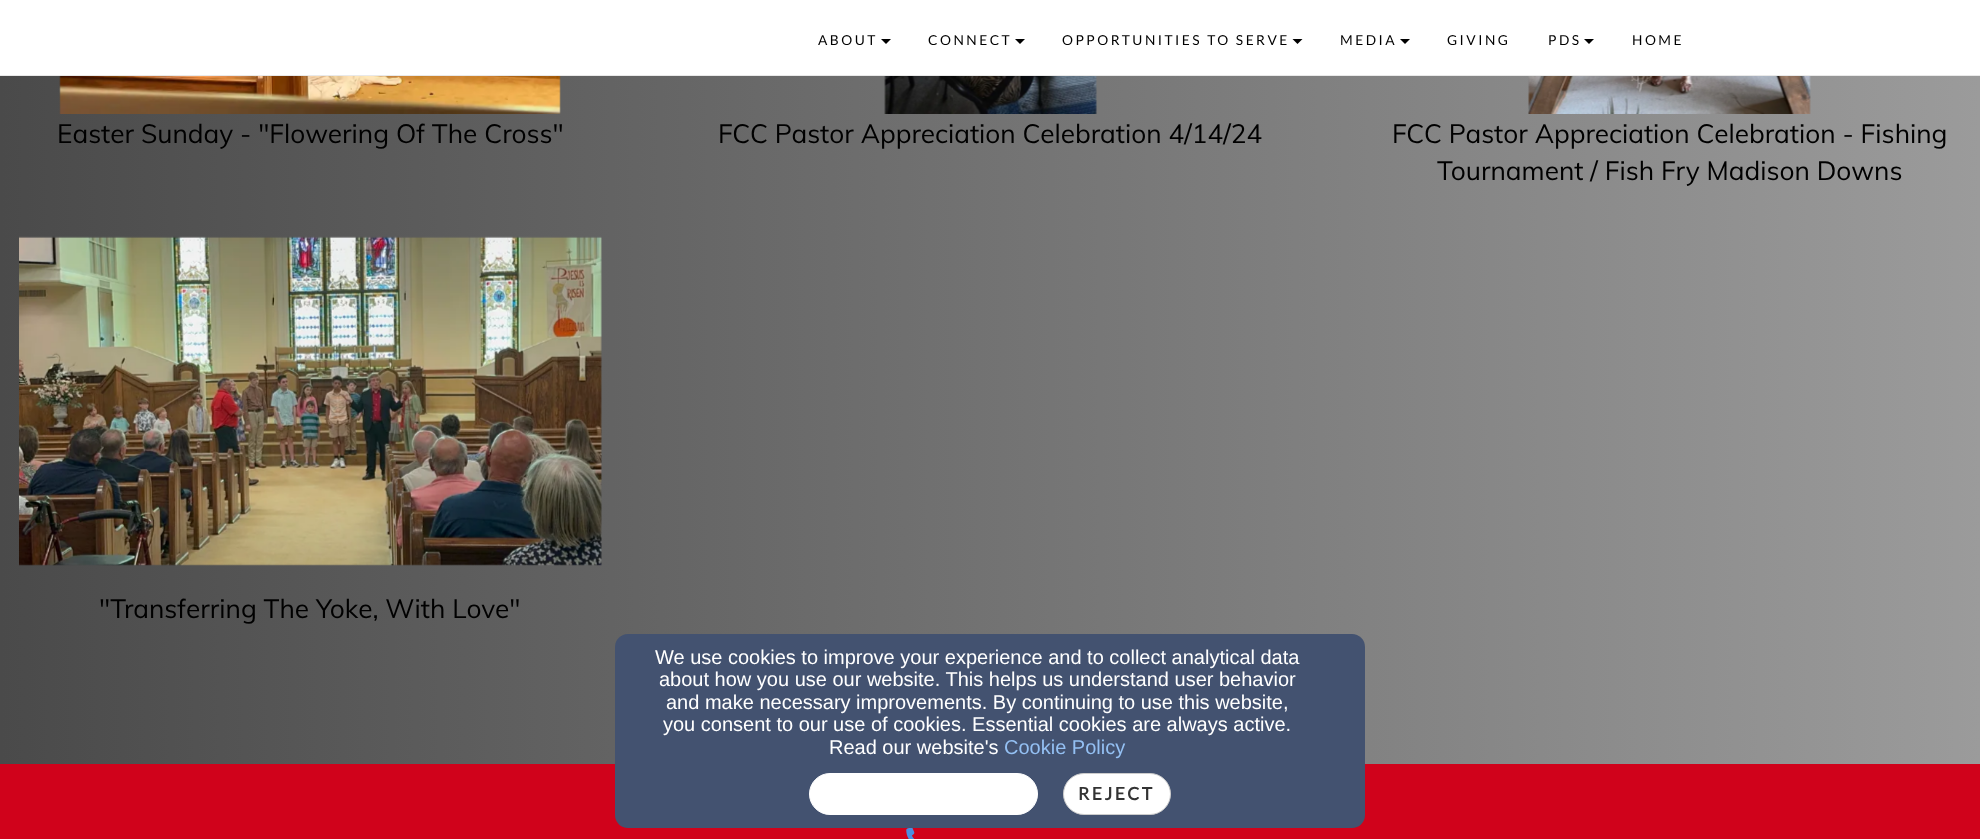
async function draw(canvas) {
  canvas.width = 1980
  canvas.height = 839
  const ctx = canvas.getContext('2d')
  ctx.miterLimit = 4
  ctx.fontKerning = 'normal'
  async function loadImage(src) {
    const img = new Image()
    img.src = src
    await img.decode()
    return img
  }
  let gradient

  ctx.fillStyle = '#d0021b'
  ctx.fillRect(0, 0, 1980, 839)
  ctx.fillStyle = '#fff'
  ctx.fillRect(0, 0, 1980, 75)
  ctx.fillStyle = '#e9e9e9'
  ctx.fillRect(0, 75, 1980, 1)
  ctx.letterSpacing = '2.5px'
  ctx.font = '13.75px Lato'
  ctx.fillStyle = '#000'
  ctx.fillText('ABOUT', 818, 45)
  ctx.beginPath()
  ctx.moveTo(881, 39)
  ctx.lineTo(891, 39)
  ctx.lineTo(886, 44)
  ctx.closePath()
  ctx.fill()
  ctx.fillText('CONNECT', 928, 45)
  ctx.beginPath()
  ctx.moveTo(1015, 39)
  ctx.lineTo(1025, 39)
  ctx.lineTo(1020, 44)
  ctx.closePath()
  ctx.fill()
  ctx.fillText('OPPORTUNITIES TO SERVE', 1062, 45)
  ctx.beginPath()
  ctx.moveTo(1292.5, 39)
  ctx.lineTo(1302.5, 39)
  ctx.lineTo(1297.5, 44)
  ctx.closePath()
  ctx.fill()
  ctx.fillText('MEDIA', 1340, 45)
  ctx.beginPath()
  ctx.moveTo(1400, 39)
  ctx.lineTo(1410, 39)
  ctx.lineTo(1405, 44)
  ctx.closePath()
  ctx.fill()
  ctx.fillText('GIVING', 1447, 45)
  ctx.fillText('PDS', 1548, 45)
  ctx.beginPath()
  ctx.moveTo(1584, 39)
  ctx.lineTo(1594, 39)
  ctx.lineTo(1589, 44)
  ctx.closePath()
  ctx.fill()
  ctx.fillText('HOME', 1632, 45)
  gradient = ctx.createLinearGradient(0, 33, 1980, 32)
  gradient.addColorStop(0, '#4a4a4a')
  gradient.addColorStop(1, '#9b9b9b')
  ctx.fillStyle = gradient
  ctx.fillRect(0, 76, 1980, 688)
  ctx.drawImage(await loadImage('image0.png'), 59, 76, 502, 38)
  ctx.letterSpacing = '0px'
  ctx.font = '26.25px Muli'
  ctx.fillStyle = '#000'
  ctx.fillText('Easter Sunday - "Flowering Of The Cross"', 57, 143)
  ctx.drawImage(await loadImage('image1.png'), 884, 76, 213, 38)
  ctx.fillText('FCC Pastor Appreciation Celebration 4/14/24', 718, 143)
  ctx.drawImage(await loadImage('image2.png'), 1528, 76, 283, 38)
  ctx.fillText('FCC Pastor Appreciation Celebration - Fishing', 1392, 143)
  ctx.fillText('Tournament / Fish Fry Madison Downs', 1437, 180)
  ctx.drawImage(await loadImage('image3.png'), 19, 236, 583, 330)
  ctx.fillText('"Transferring The Yoke, With Love"', 99, 618)
  ctx.fillStyle = '#435270'
  ctx.beginPath()
  ctx.roundRect(615, 634, 750, 194, 13)
  ctx.fill()
  ctx.font = '20px Liberation Sans'
  ctx.fillStyle = '#fff'
  ctx.fillText('We use cookies to improve your experience and to collect analytical data', 655, 664)
  ctx.fillText('about how you use our website. This helps us understand user behavior', 659, 686)
  ctx.fillText('and make necessary improvements. By continuing to use this website,', 666, 709)
  ctx.fillText('you consent to our use of cookies. Essential cookies are always active.', 663, 731)
  ctx.fillText('Read our website\'s', 829, 754)
  ctx.fillStyle = '#94c0f3'
  ctx.fillText('Cookie Policy', 1004, 754)
  ctx.fillStyle = '#fff'
  ctx.beginPath()
  ctx.roundRect(809.5, 773.5, 228, 41, 20.5)
  ctx.fill()
  ctx.strokeStyle = '#fff'
  ctx.stroke()
  ctx.beginPath()
  ctx.roundRect(1063.5, 773.5, 107, 41, 20.5)
  ctx.fill()
  ctx.strokeStyle = '#ccc'
  ctx.stroke()
  ctx.letterSpacing = '2.5px'
  ctx.font = 'bold 17.5px Lato'
  ctx.fillStyle = '#333'
  ctx.fillText('REJECT', 1078, 800)
  ctx.drawImage(await loadImage('image4.png'), 906, 828, 9, 11)
}

draw(document.querySelector('canvas'))
